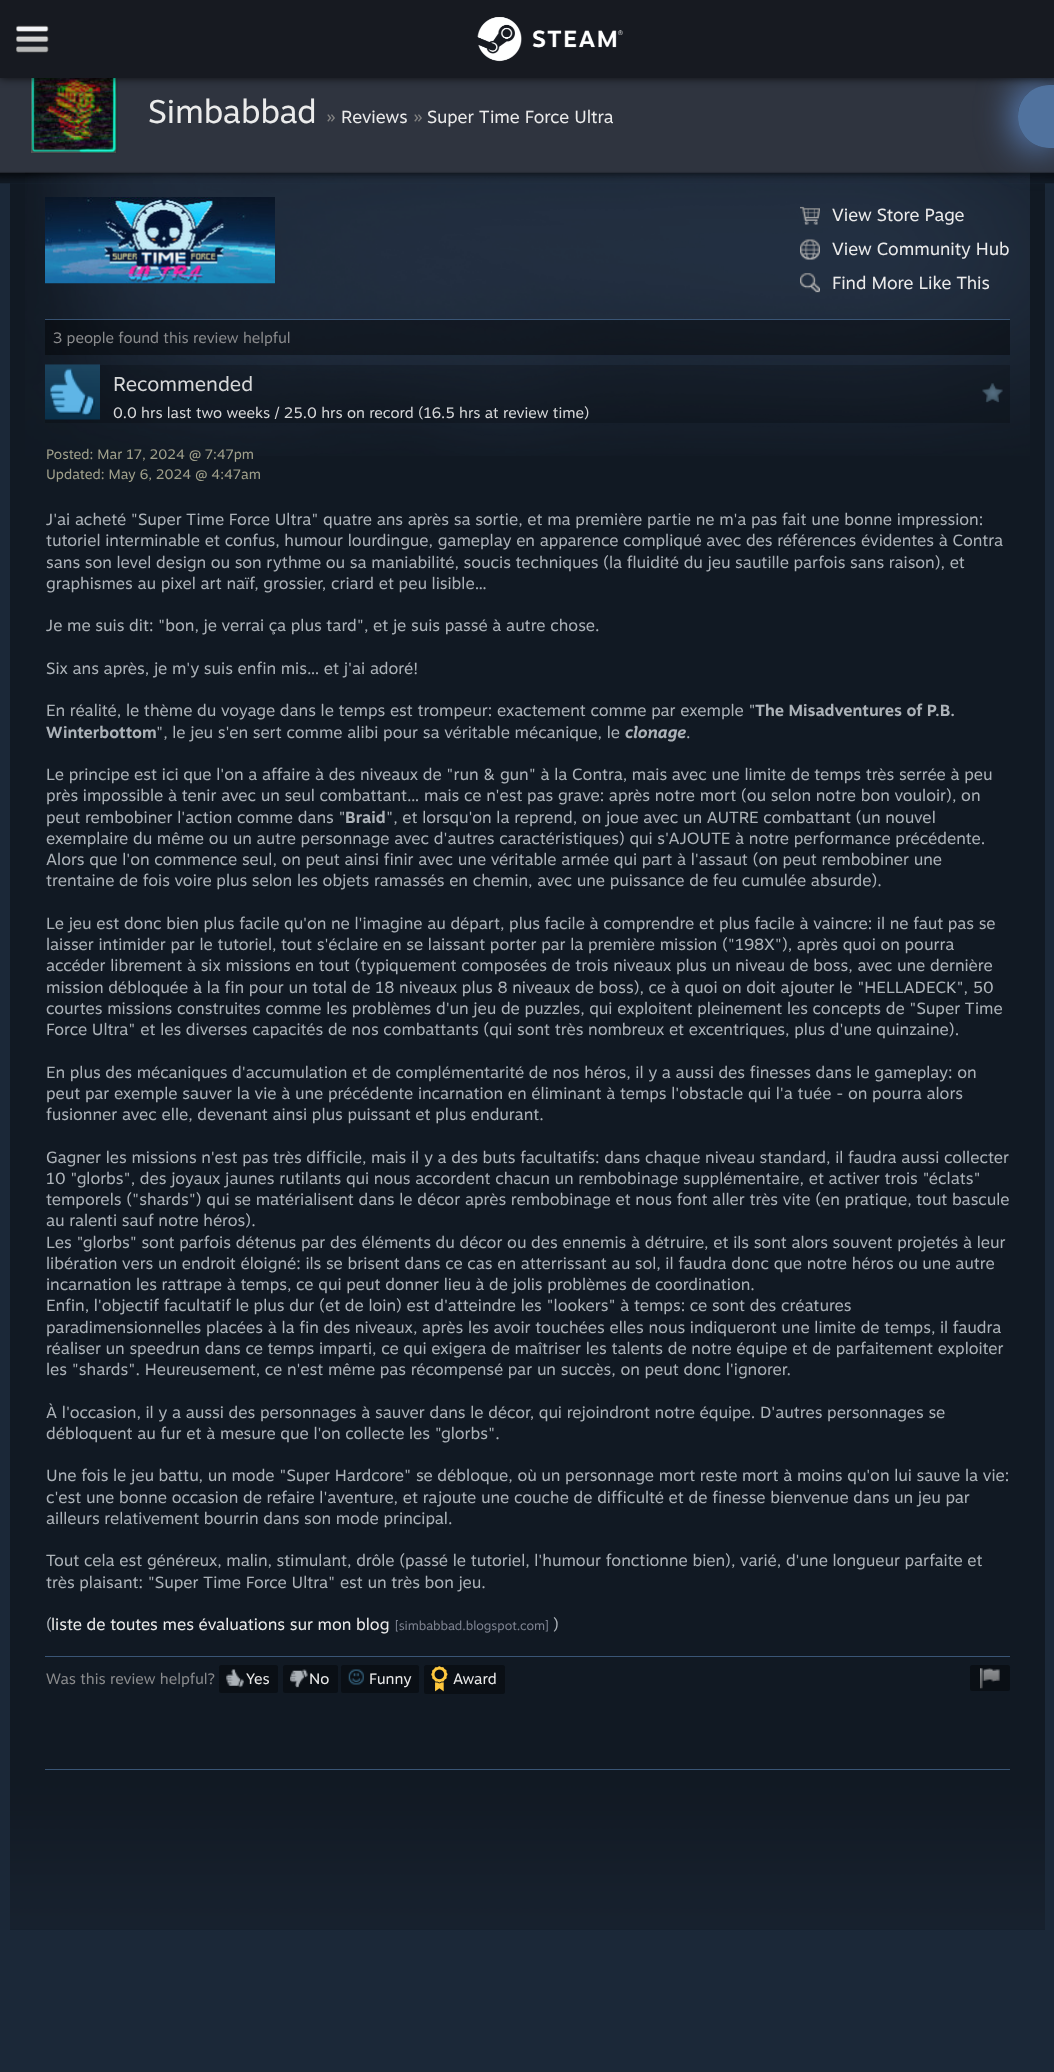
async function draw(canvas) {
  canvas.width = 1054
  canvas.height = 2072
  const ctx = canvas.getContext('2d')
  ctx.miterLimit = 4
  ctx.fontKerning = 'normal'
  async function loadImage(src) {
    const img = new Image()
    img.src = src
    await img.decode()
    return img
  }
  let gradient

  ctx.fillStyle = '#1b2838'
  ctx.fillRect(0, 0, 1054, 2072)
  ctx.drawImage(await loadImage('image2.png'), 0, 78, 1054, 106)
  ctx.drawImage(await loadImage('image5.png'), 10, 183, 1035, 1747)
  ctx.drawImage(await loadImage('image6.png'), 25, 172, 1005, 284)
  ctx.fillStyle = '#3a3e4780'
  ctx.fillRect(0, 78, 1054, 95)
  ctx.save()
  ctx.beginPath()
  ctx.moveTo(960, 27)
  ctx.lineTo(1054, 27)
  ctx.lineTo(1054, 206)
  ctx.lineTo(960, 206)
  ctx.closePath()
  ctx.moveTo(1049, 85)
  ctx.lineTo(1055, 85)
  ctx.lineTo(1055, 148)
  ctx.lineTo(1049, 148)
  ctx.bezierCurveTo(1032, 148, 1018, 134, 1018, 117)
  ctx.lineTo(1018, 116)
  ctx.bezierCurveTo(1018, 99, 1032, 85, 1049, 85)
  ctx.closePath()
  ctx.clip('evenodd')
  ctx.fillStyle = '#6799e2'
  ctx.filter = 'blur(19px)'
  ctx.beginPath()
  ctx.roundRect(1018, 85, 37, 63, 31)
  ctx.fill()
  ctx.filter = 'none'
  ctx.restore()
  ctx.fillStyle = '#689ddd99'
  ctx.beginPath()
  ctx.moveTo(1049, 85)
  ctx.lineTo(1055, 85)
  ctx.lineTo(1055, 148)
  ctx.lineTo(1049, 148)
  ctx.bezierCurveTo(1032, 148, 1018, 134, 1018, 117)
  ctx.lineTo(1018, 116)
  ctx.bezierCurveTo(1018, 99, 1032, 85, 1049, 85)
  ctx.closePath()
  ctx.fill()
  gradient = ctx.createLinearGradient(74, 67, 74, 153)
  gradient.addColorStop(0.05, '#6a6a6a')
  gradient.addColorStop(0.95, '#555')
  ctx.fillStyle = gradient
  ctx.fillRect(31, 78, 85, 75)
  gradient = ctx.createLinearGradient(74, 69, 74, 151)
  gradient.addColorStop(0.05, '#515151')
  gradient.addColorStop(0.95, '#474747')
  ctx.fillStyle = gradient
  ctx.fillRect(33, 78, 82, 73)
  ctx.drawImage(await loadImage('image4.png'), 33, 78, 81, 72)
  ctx.drawImage(await loadImage('image3.png'), 30, 78, 88, 76)
  ctx.fillStyle = '#000000bf'
  ctx.filter = 'blur(4.5px)'
  ctx.beginPath()
  ctx.rect(0, 0, 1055, 78)
  ctx.fill()
  ctx.filter = 'none'
  ctx.fillStyle = '#171a21'
  ctx.fillRect(0, 0, 1054, 78)
  ctx.drawImage(await loadImage('image0.png'), 16, 25, 33, 28)
  ctx.drawImage(await loadImage('image1.png'), 477, 17, 146, 45)
  ctx.font = '32.5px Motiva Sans'
  ctx.fillStyle = '#ebebeb'
  ctx.fillText('Simbabbad', 148, 123)
  ctx.font = '20px Motiva Sans'
  ctx.fillStyle = '#828282'
  ctx.fillText('»', 326, 123)
  ctx.font = '17.5px Motiva Sans'
  ctx.fillStyle = '#ebebeb'
  ctx.fillText('Reviews', 341, 123)
  ctx.font = '20px Motiva Sans'
  ctx.fillStyle = '#828282'
  ctx.fillText('»', 413, 123)
  ctx.font = '17.5px Motiva Sans'
  ctx.fillStyle = '#ebebeb'
  ctx.fillText('Super Time Force Ultra', 427, 123)
  ctx.drawImage(await loadImage('image7.png'), 45, 197, 230, 87)
  ctx.drawImage(await loadImage('image8.png'), 800, 206, 20, 19)
  ctx.fillText('View Store Page', 832, 221)
  ctx.drawImage(await loadImage('image9.png'), 800, 239, 20, 21)
  ctx.fillText('View Community Hub', 832, 255)
  ctx.drawImage(await loadImage('image10.png'), 800, 273, 20, 20)
  ctx.fillText('Find More Like This', 832, 289)
  ctx.fillStyle = '#00000066'
  ctx.fillRect(45, 319, 965, 36)
  ctx.fillStyle = '#557dab99'
  ctx.fillRect(45, 319, 965, 1)
  ctx.font = '15px Motiva Sans'
  ctx.fillStyle = '#898a8c'
  ctx.fillText('3 people found this review helpful', 53, 343)
  ctx.fillStyle = '#00000033'
  ctx.fillRect(45, 365, 965, 58)
  ctx.drawImage(await loadImage('image11.png'), 45, 364, 55, 56)
  ctx.font = '20px Motiva Sans'
  ctx.fillStyle = '#d6d7d8'
  ctx.fillText('Recommended', 113, 391)
  ctx.drawImage(await loadImage('image12.png'), 982, 383, 21, 20)
  ctx.font = '15px Motiva Sans'
  ctx.fillText('0.0 hrs last two weeks / 25.0 hrs on record (16.5 hrs at review time)', 113, 418)
  ctx.font = '13.75px Motiva Sans'
  ctx.fillStyle = '#a0a08b'
  ctx.fillText('Posted: Mar 17, 2024 @ 7:47pm', 46, 459)
  ctx.fillText('Updated: May 6, 2024 @ 4:47am', 46, 479)
  ctx.font = '16.25px Motiva Sans'
  ctx.fillStyle = '#acb2b8'
  ctx.fillText('J\'ai acheté "Super Time Force Ultra" quatre ans après sa sortie, et ma première partie ne m\'a pas fait une bonne impression:', 46, 525)
  ctx.fillText('tutoriel interminable et confus, humour lourdingue, gameplay en apparence compliqué avec des références évidentes à Contra', 46, 546)
  ctx.fillText('sans son level design ou son rythme ou sa maniabilité, soucis techniques (la fluidité du jeu sautille parfois sans raison), et', 46, 568)
  ctx.fillText('graphismes au pixel art naïf, grossier, criard et peu lisible...', 46, 589)
  ctx.fillText('Je me suis dit: "bon, je verrai ça plus tard", et je suis passé à autre chose.', 46, 631)
  ctx.fillText('Six ans après, je m\'y suis enfin mis... et j\'ai adoré!', 46, 674)
  ctx.fillText('En réalité, le thème du voyage dans le temps est trompeur: exactement comme par exemple "', 46, 716)
  ctx.font = 'bold 16.25px Motiva Sans'
  ctx.fillText('The Misadventures of P.B.', 755, 716)
  ctx.fillText('Winterbottom', 46, 738)
  ctx.font = '16.25px Motiva Sans'
  ctx.fillText('", le jeu s\'en sert comme alibi pour sa véritable mécanique, le', 156, 738)
  ctx.font = 'italic bold 16.25px Motiva Sans'
  ctx.fillText('clonage', 625, 738)
  ctx.font = '16.25px Motiva Sans'
  ctx.fillText('.', 686, 738)
  ctx.fillText('Le principe est ici que l\'on a affaire à des niveaux de "run & gun" à la Contra, mais avec une limite de temps très serrée à peu', 46, 780)
  ctx.fillText('près impossible à tenir avec un seul combattant... mais ce n\'est pas grave: après notre mort (ou selon notre bon vouloir), on', 46, 801)
  ctx.fillText('peut rembobiner l\'action comme dans "', 46, 823)
  ctx.font = 'bold 16.25px Motiva Sans'
  ctx.fillText('Braid', 345, 823)
  ctx.font = '16.25px Motiva Sans'
  ctx.fillText('", et lorsqu\'on la reprend, on joue avec un AUTRE combattant (un nouvel', 386, 823)
  ctx.fillText('exemplaire du même ou un autre personnage avec d\'autres caractéristiques) qui s\'AJOUTE à notre performance précédente.', 46, 844)
  ctx.fillText('Alors que l\'on commence seul, on peut ainsi finir avec une véritable armée qui part à l\'assaut (on peut rembobiner une', 46, 865)
  ctx.fillText('trentaine de fois voire plus selon les objets ramassés en chemin, avec une puissance de feu cumulée absurde).', 46, 886)
  ctx.fillText('Le jeu est donc bien plus facile qu\'on ne l\'imagine au départ, plus facile à comprendre et plus facile à vaincre: il ne faut pas se', 46, 929)
  ctx.fillText('laisser intimider par le tutoriel, tout s\'éclaire en se laissant porter par la première mission ("198X"), après quoi on pourra', 46, 950)
  ctx.fillText('accéder librement à six missions en tout (typiquement composées de trois niveaux plus un niveau de boss, avec une dernière', 46, 971)
  ctx.fillText('mission débloquée à la fin pour un total de 18 niveaux plus 8 niveaux de boss), ce à quoi on doit ajouter le "HELLADECK", 50', 46, 993)
  ctx.fillText('courtes missions construites comme les problèmes d\'un jeu de puzzles, qui exploitent pleinement les concepts de "Super Time', 46, 1014)
  ctx.fillText('Force Ultra" et les diverses capacités de nos combattants (qui sont très nombreux et excentriques, plus d\'une quinzaine).', 46, 1035)
  ctx.fillText('En plus des mécaniques d\'accumulation et de complémentarité de nos héros, il y a aussi des finesses dans le gameplay: on', 46, 1078)
  ctx.fillText('peut par exemple sauver la vie à une précédente incarnation en éliminant à temps l\'obstacle qui l\'a tuée - on pourra alors', 46, 1099)
  ctx.fillText('fusionner avec elle, devenant ainsi plus puissant et plus endurant.', 46, 1120)
  ctx.fillText('Gagner les missions n\'est pas très difficile, mais il y a des buts facultatifs: dans chaque niveau standard, il faudra aussi collecter', 46, 1163)
  ctx.fillText('10 "glorbs", des joyaux jaunes rutilants qui nous accordent chacun un rembobinage supplémentaire, et activer trois "éclats"', 46, 1184)
  ctx.fillText('temporels ("shards") qui se matérialisent dans le décor après rembobinage et nous font aller très vite (en pratique, tout bascule', 46, 1205)
  ctx.fillText('au ralenti sauf notre héros).', 46, 1226)
  ctx.fillText('Les "glorbs" sont parfois détenus par des éléments du décor ou des ennemis à détruire, et ils sont alors souvent projetés à leur', 46, 1248)
  ctx.fillText('libération vers un endroit éloigné: ils se brisent dans ce cas en atterrissant au sol, il faudra donc que notre héros ou une autre', 46, 1269)
  ctx.fillText('incarnation les rattrape à temps, ce qui peut donner lieu à de jolis problèmes de coordination.', 46, 1290)
  ctx.fillText('Enfin, l\'objectif facultatif le plus dur (et de loin) est d\'atteindre les "lookers" à temps: ce sont des créatures', 46, 1311)
  ctx.fillText('paradimensionnelles placées à la fin des niveaux, après les avoir touchées elles nous indiqueront une limite de temps, il faudra', 46, 1333)
  ctx.fillText('réaliser un speedrun dans ce temps imparti, ce qui exigera de maîtriser les talents de notre équipe et de parfaitement exploiter', 46, 1354)
  ctx.fillText('les "shards". Heureusement, ce n\'est même pas récompensé par un succès, on peut donc l\'ignorer.', 46, 1375)
  ctx.fillText('À l\'occasion, il y a aussi des personnages à sauver dans le décor, qui rejoindront notre équipe. D\'autres personnages se', 46, 1418)
  ctx.fillText('débloquent au fur et à mesure que l\'on collecte les "glorbs".', 46, 1439)
  ctx.fillText('Une fois le jeu battu, un mode "Super Hardcore" se débloque, où un personnage mort reste mort à moins qu\'on lui sauve la vie:', 46, 1481)
  ctx.fillText('c\'est une bonne occasion de refaire l\'aventure, et rajoute une couche de difficulté et de finesse bienvenue dans un jeu par', 46, 1503)
  ctx.fillText('ailleurs relativement bourrin dans son mode principal.', 46, 1524)
  ctx.fillText('Tout cela est généreux, malin, stimulant, drôle (passé le tutoriel, l\'humour fonctionne bien), varié, d\'une longueur parfaite et', 46, 1566)
  ctx.fillText('très plaisant: "Super Time Force Ultra" est un très bon jeu.', 46, 1588)
  ctx.fillText('(', 46, 1630)
  ctx.fillStyle = '#ebebeb'
  ctx.fillText('liste de toutes mes évaluations sur mon blog', 51, 1630)
  ctx.font = '12.5px Motiva Sans'
  ctx.fillStyle = '#7e8391'
  ctx.fillText('[simbabbad.blogspot.com]', 395, 1630)
  ctx.font = '16.25px Motiva Sans'
  ctx.fillStyle = '#acb2b8'
  ctx.fillText(')', 553, 1630)
  ctx.fillStyle = '#3a5575'
  ctx.fillRect(45, 1656, 965, 1)
  ctx.font = '15px Motiva Sans'
  ctx.fillStyle = '#898a8c'
  ctx.fillText('Was this review helpful?', 46, 1684)
  ctx.fillStyle = '#0a0f15'
  ctx.beginPath()
  ctx.roundRect(219, 1665, 59, 28, 2.5)
  ctx.fill()
  ctx.drawImage(await loadImage('image13.png'), 226, 1669, 18, 19)
  ctx.fillStyle = '#ebebeb'
  ctx.fillText('Yes', 246, 1684)
  ctx.fillStyle = '#0a0f15'
  ctx.beginPath()
  ctx.roundRect(283, 1665, 55, 28, 2.5)
  ctx.fill()
  ctx.drawImage(await loadImage('image14.png'), 290, 1669, 18, 19)
  ctx.fillStyle = '#ebebeb'
  ctx.fillText('No', 309, 1684)
  ctx.fillStyle = '#0a0f15'
  ctx.beginPath()
  ctx.roundRect(341, 1665, 78, 28, 2.5)
  ctx.fill()
  ctx.drawImage(await loadImage('image15.png'), 348, 1669, 16, 16)
  ctx.fillStyle = '#ebebeb'
  ctx.fillText('Funny', 369, 1684)
  ctx.fillStyle = '#0a0f15'
  ctx.beginPath()
  ctx.roundRect(424, 1665, 81, 29, 2.5)
  ctx.fill()
  ctx.drawImage(await loadImage('image16.png'), 431, 1666, 17, 26)
  ctx.fillStyle = '#ebebeb'
  ctx.fillText('Award', 453, 1684)
  ctx.fillStyle = '#0a0f15'
  ctx.beginPath()
  ctx.roundRect(970, 1665, 40, 26, 2.5)
  ctx.fill()
  ctx.drawImage(await loadImage('image17.png'), 980, 1668, 20, 21)
  ctx.fillStyle = '#3a5575'
  ctx.fillRect(45, 1769, 965, 1)
}

draw(document.querySelector('canvas'))
